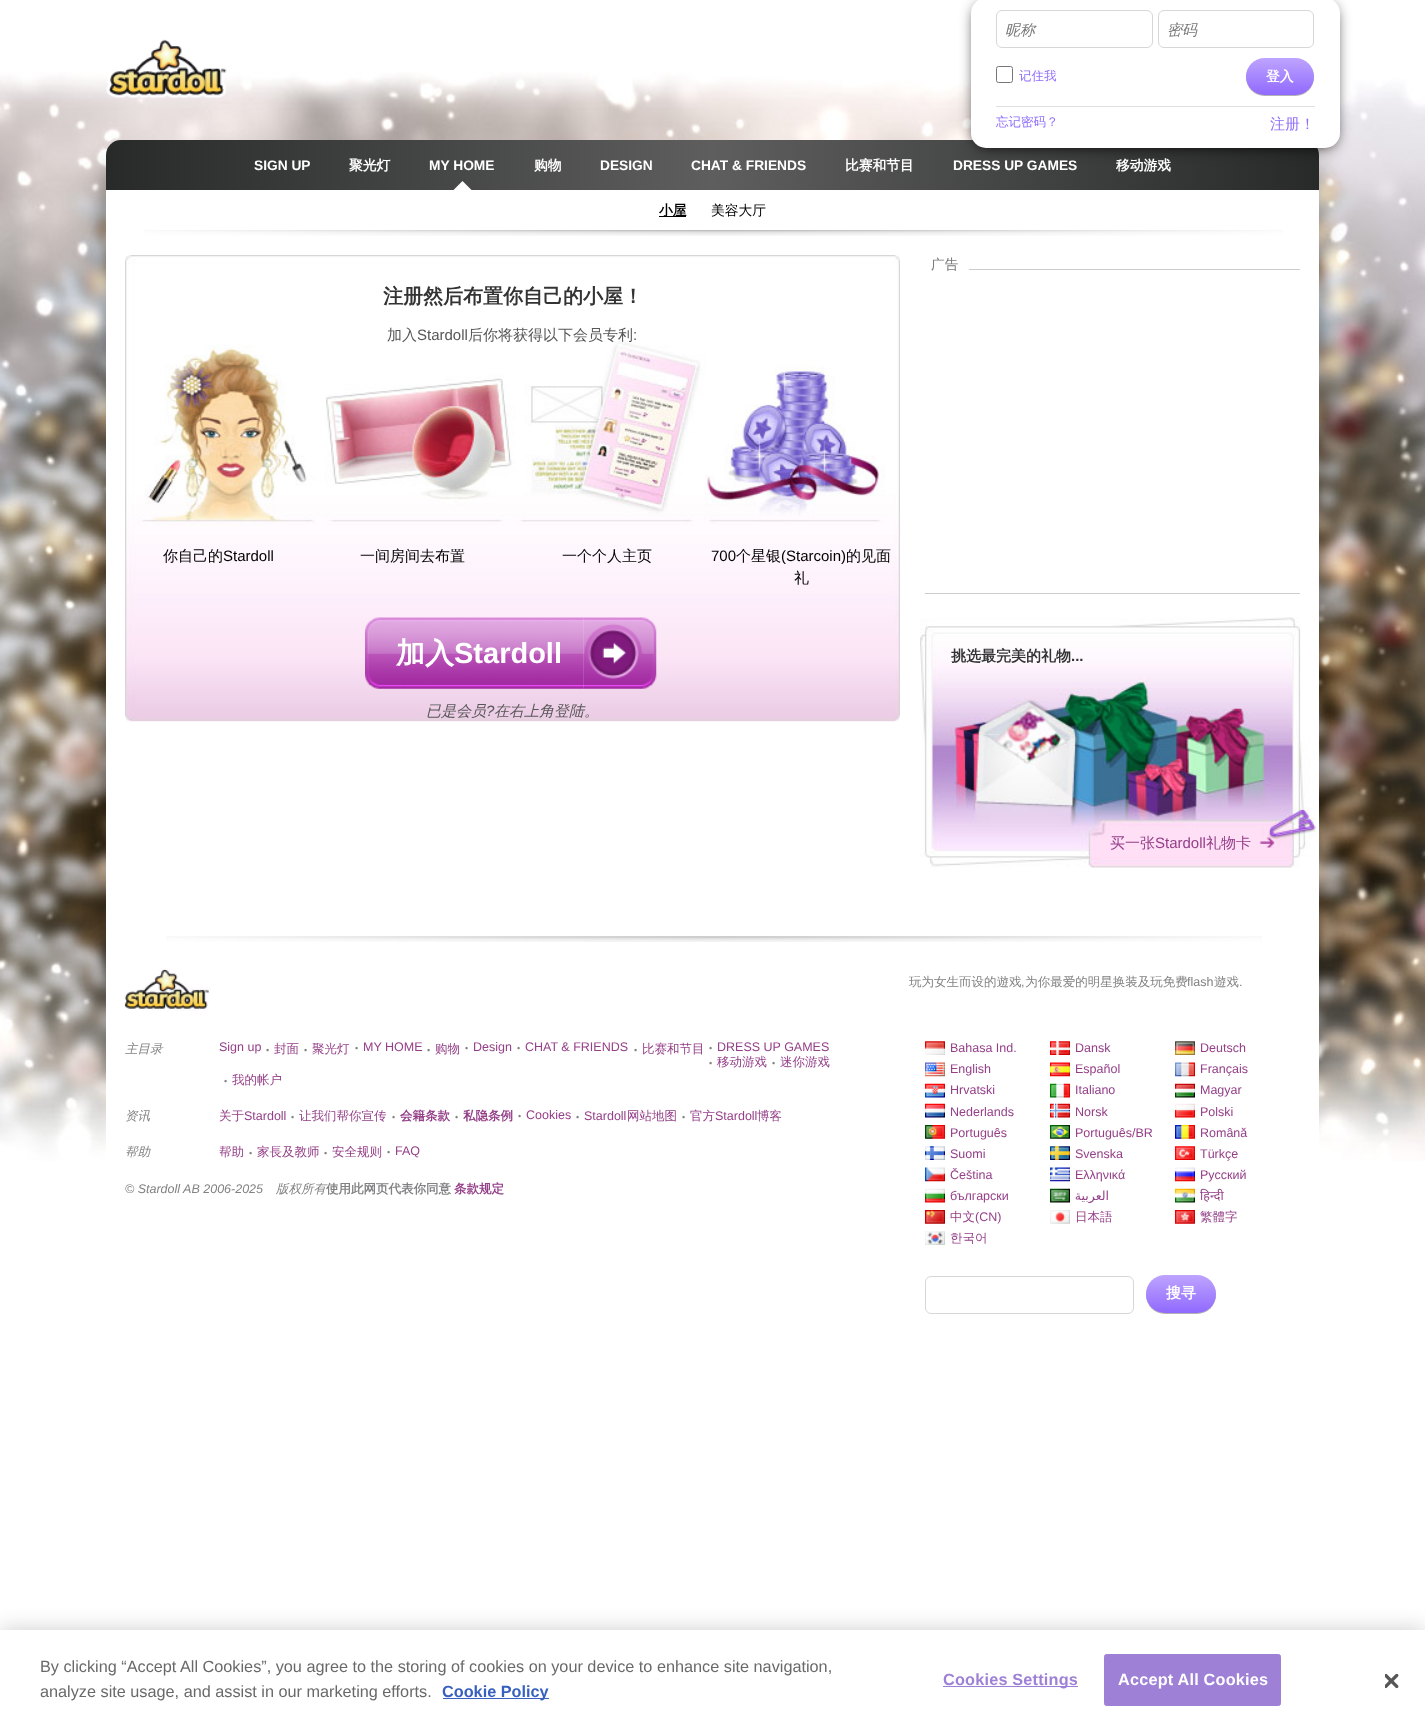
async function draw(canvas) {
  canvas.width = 1425
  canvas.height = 1732
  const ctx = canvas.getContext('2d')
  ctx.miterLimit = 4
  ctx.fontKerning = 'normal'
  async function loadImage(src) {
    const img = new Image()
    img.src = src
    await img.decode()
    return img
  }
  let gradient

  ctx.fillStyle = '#fff'
  ctx.fillRect(0, 0, 1425, 1732)
  ctx.drawImage(await loadImage('image0.png'), 0, 72, 1425, 1089)
  ctx.drawImage(await loadImage('image1.png'), 106, 39, 121, 59)
  ctx.fillStyle = '#0000004d'
  ctx.filter = 'blur(10px)'
  ctx.beginPath()
  ctx.rect(104, 168, 25, 908)
  ctx.fill()
  ctx.filter = 'none'
  ctx.filter = 'blur(10px)'
  ctx.beginPath()
  ctx.rect(1296, 168, 25, 908)
  ctx.fill()
  ctx.filter = 'none'
  gradient = ctx.createLinearGradient(106, 165, 1319, 165)
  gradient.addColorStop(0, '#282929')
  gradient.addColorStop(0.5, '#5e5e5e')
  gradient.addColorStop(1, '#282929')
  ctx.fillStyle = gradient
  ctx.beginPath()
  ctx.roundRect(106, 140, 1213, 50, [15, 15, 0, 0])
  ctx.fill()
  ctx.fillStyle = '#000'
  ctx.filter = 'blur(7.5px)'
  ctx.beginPath()
  ctx.roundRect(976, 6, 359, 140, 10)
  ctx.fill()
  ctx.filter = 'none'
  ctx.fillStyle = '#fff'
  ctx.beginPath()
  ctx.roundRect(971, -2, 369, 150, 15)
  ctx.fill()
  ctx.beginPath()
  ctx.roundRect(996.5, 10.5, 156, 37, 5.5)
  ctx.strokeStyle = '#d7d7d7'
  ctx.stroke()
  ctx.font = 'italic 500 15px WenQuanYi Zen Hei'
  ctx.fillStyle = '#787878'
  ctx.fillText('昵称', 1005, 35)
  ctx.beginPath()
  ctx.roundRect(1158.5, 10.5, 155, 37, 5.5)
  ctx.stroke()
  ctx.fillText('密码', 1167, 35)
  ctx.beginPath()
  ctx.roundRect(996.5, 66.5, 16, 16, 2)
  ctx.strokeStyle = '#767676'
  ctx.stroke()
  ctx.font = '500 12.5px WenQuanYi Zen Hei'
  ctx.fillStyle = '#906efb'
  ctx.fillText('记住我', 1019, 80)
  ctx.fillStyle = '#0000004d'
  ctx.filter = 'blur(0.5px)'
  ctx.beginPath()
  ctx.roundRect(1246, 59, 68, 37, 18.5)
  ctx.fill()
  ctx.filter = 'none'
  gradient = ctx.createLinearGradient(1280, 58, 1280, 95)
  gradient.addColorStop(0, '#bea4ff')
  gradient.addColorStop(1, '#9069ff')
  ctx.fillStyle = gradient
  ctx.beginPath()
  ctx.roundRect(1246, 58, 68, 37, 18.5)
  ctx.fill()
  ctx.font = 'bold 13.75px WenQuanYi Zen Hei'
  ctx.fillStyle = '#fff'
  ctx.fillText('登入', 1266, 81)
  ctx.fillStyle = '#dfdfdf'
  ctx.fillRect(996, 106, 319, 1)
  ctx.font = '500 12.5px WenQuanYi Zen Hei'
  ctx.fillStyle = '#906efb'
  ctx.fillText('忘记密码？', 996, 126)
  ctx.font = '500 15px WenQuanYi Zen Hei'
  ctx.fillText('注册！', 1270, 129)
  ctx.font = 'bold 13.75px Liberation Sans'
  ctx.fillStyle = '#fff'
  ctx.fillText('SIGN UP', 254, 170)
  ctx.font = 'bold 13.75px WenQuanYi Zen Hei'
  ctx.fillText('聚光灯', 349, 170)
  ctx.font = 'bold 13.75px Liberation Sans'
  ctx.fillText('MY HOME', 429, 170)
  ctx.fillRect(106, 190, 1213, 971)
  ctx.beginPath()
  ctx.moveTo(472.5, 191)
  ctx.lineTo(452.5, 191)
  ctx.lineTo(462.5, 181)
  ctx.closePath()
  ctx.fill()
  ctx.font = 'bold 13.75px WenQuanYi Zen Hei'
  ctx.fillText('购物', 534, 170)
  ctx.font = 'bold 13.75px Liberation Sans'
  ctx.fillText('DESIGN', 600, 170)
  ctx.fillText('CHAT & FRIENDS', 691, 170)
  ctx.font = 'bold 13.75px WenQuanYi Zen Hei'
  ctx.fillText('比赛和节目', 845, 170)
  ctx.font = 'bold 13.75px Liberation Sans'
  ctx.fillText('DRESS UP GAMES', 953, 170)
  ctx.font = 'bold 13.75px WenQuanYi Zen Hei'
  ctx.fillText('移动游戏', 1116, 170)
  ctx.fillStyle = '#000'
  ctx.fillRect(659, 216, 27, 1)
  ctx.fillText('小屋', 659, 215)
  ctx.font = '500 13.75px WenQuanYi Zen Hei'
  ctx.fillText('美容大厅', 711, 215)
  ctx.drawImage(await loadImage('image2.png'), 144, 230, 1139, 6)
  ctx.drawImage(await loadImage('image3.png'), 125, 255, 775, 467)
  ctx.font = 'bold 20px WenQuanYi Zen Hei'
  ctx.fillStyle = '#333'
  ctx.fillText('注册然后布置你自己的小屋！', 383, 303)
  ctx.font = '500 15px WenQuanYi Zen Hei'
  ctx.fillStyle = '#575757'
  ctx.fillText('加入', 387, 340)
  ctx.font = '15px Liberation Sans'
  ctx.fillText('Stardoll', 417, 340)
  ctx.font = '500 15px WenQuanYi Zen Hei'
  ctx.fillText('后你将获得以下会员专利', 468, 340)
  ctx.font = '15px Liberation Sans'
  ctx.fillText(':', 633, 340)
  ctx.font = '500 15px WenQuanYi Zen Hei'
  ctx.fillStyle = '#000'
  ctx.fillText('你自己的', 163, 561)
  ctx.font = '15px Liberation Sans'
  ctx.fillText('Stardoll', 223, 561)
  ctx.font = '500 15px WenQuanYi Zen Hei'
  ctx.fillText('一间房间去布置', 360, 561)
  ctx.fillText('一个个人主页', 562, 561)
  ctx.font = '15px Liberation Sans'
  ctx.fillText('700', 711, 561)
  ctx.font = '500 15px WenQuanYi Zen Hei'
  ctx.fillText('个星银', 736, 561)
  ctx.font = '15px Liberation Sans'
  ctx.fillText('(Starcoin)', 781, 561)
  ctx.font = '500 15px WenQuanYi Zen Hei'
  ctx.fillText('的见面', 846, 561)
  ctx.fillText('礼', 794, 583)
  ctx.drawImage(await loadImage('image4.png'), 583, 617, 74, 72)
  ctx.drawImage(await loadImage('image5.png'), 365, 617, 219, 72)
  ctx.font = 'bold 29px WenQuanYi Zen Hei'
  ctx.fillStyle = '#fff'
  ctx.fillText('加入', 396, 663)
  ctx.font = 'bold 29px Liberation Sans'
  ctx.fillText('Stardoll', 454, 663)
  ctx.font = 'italic 500 15px WenQuanYi Zen Hei'
  ctx.fillStyle = '#575757'
  ctx.fillText('已是会员', 426, 716)
  ctx.font = 'italic 15px Liberation Sans'
  ctx.fillText('?', 486, 716)
  ctx.font = 'italic 500 15px WenQuanYi Zen Hei'
  ctx.fillText('在右上角登陆。', 494, 716)
  ctx.font = '500 13.75px WenQuanYi Zen Hei'
  ctx.fillStyle = '#787878'
  ctx.fillText('广告', 931, 269)
  ctx.fillStyle = '#ccc'
  ctx.fillRect(969, 269, 331, 1)
  ctx.fillRect(925, 593, 375, 1)
  ctx.drawImage(await loadImage('image6.png'), 920, 617, 397, 251)
  ctx.font = 'bold 15px WenQuanYi Zen Hei'
  ctx.fillStyle = '#333'
  ctx.fillText('挑选最完美的礼物', 951, 661)
  ctx.font = 'bold 15px Liberation Sans'
  ctx.fillText('...', 1071, 661)
  ctx.font = '500 15px WenQuanYi Zen Hei'
  ctx.fillStyle = '#943f88'
  ctx.fillText('买一张', 1110, 848)
  ctx.font = '15px Liberation Sans'
  ctx.fillText('Stardoll', 1155, 848)
  ctx.font = '500 15px WenQuanYi Zen Hei'
  ctx.fillText('礼物卡', 1206, 848)
  ctx.drawImage(await loadImage('image7.png'), 1259, 837, 16, 11)
  ctx.drawImage(await loadImage('image8.png'), 166, 936, 1096, 6)
  ctx.drawImage(await loadImage('image9.png'), 124, 968, 87, 43)
  ctx.font = '500 12.5px WenQuanYi Zen Hei'
  ctx.fillStyle = '#828284'
  ctx.fillText('玩为女生而设的遊戏 为你最爱的明星换装及玩免费', 909, 986)
  ctx.font = '12.5px Liberation Sans'
  ctx.fillText('flash', 1187, 986)
  ctx.font = '500 12.5px WenQuanYi Zen Hei'
  ctx.fillText('遊戏', 1214, 986)
  ctx.font = '12.5px Liberation Sans'
  ctx.fillText(',', 1021, 986)
  ctx.fillText('.', 1239, 986)
  ctx.font = 'italic 500 12.5px WenQuanYi Zen Hei'
  ctx.fillText('主目录', 125, 1053)
  ctx.font = '12.5px Liberation Sans'
  ctx.fillStyle = '#943f88'
  ctx.fillText('Sign up', 219, 1051)
  ctx.font = '9px Liberation Sans'
  ctx.fillStyle = '#828284'
  ctx.fillText('•', 266, 1053)
  ctx.font = '500 12.5px WenQuanYi Zen Hei'
  ctx.fillStyle = '#943f88'
  ctx.fillText('封面', 274, 1053)
  ctx.font = '9px Liberation Sans'
  ctx.fillStyle = '#828284'
  ctx.fillText('•', 304, 1053)
  ctx.font = '500 12.5px WenQuanYi Zen Hei'
  ctx.fillStyle = '#943f88'
  ctx.fillText('聚光灯', 312, 1053)
  ctx.font = '9px Liberation Sans'
  ctx.fillStyle = '#828284'
  ctx.fillText('•', 355, 1051)
  ctx.font = '12.5px Liberation Sans'
  ctx.fillStyle = '#943f88'
  ctx.fillText('MY HOME', 363, 1051)
  ctx.font = '9px Liberation Sans'
  ctx.fillStyle = '#828284'
  ctx.fillText('•', 427, 1053)
  ctx.font = '500 12.5px WenQuanYi Zen Hei'
  ctx.fillStyle = '#943f88'
  ctx.fillText('购物', 435, 1053)
  ctx.font = '9px Liberation Sans'
  ctx.fillStyle = '#828284'
  ctx.fillText('•', 465, 1051)
  ctx.font = '12.5px Liberation Sans'
  ctx.fillStyle = '#943f88'
  ctx.fillText('Design', 473, 1051)
  ctx.font = '9px Liberation Sans'
  ctx.fillStyle = '#828284'
  ctx.fillText('•', 517, 1051)
  ctx.font = '12.5px Liberation Sans'
  ctx.fillStyle = '#943f88'
  ctx.fillText('CHAT & FRIENDS', 525, 1051)
  ctx.font = '9px Liberation Sans'
  ctx.fillStyle = '#828284'
  ctx.fillText('•', 634, 1053)
  ctx.font = '500 12.5px WenQuanYi Zen Hei'
  ctx.fillStyle = '#943f88'
  ctx.fillText('比赛和节目', 642, 1053)
  ctx.font = '9px Liberation Sans'
  ctx.fillStyle = '#828284'
  ctx.fillText('•', 709, 1051)
  ctx.font = '12.5px Liberation Sans'
  ctx.fillStyle = '#943f88'
  ctx.fillText('DRESS UP GAMES', 717, 1051)
  ctx.font = '9px Liberation Sans'
  ctx.fillStyle = '#828284'
  ctx.fillText('•', 709, 1066)
  ctx.font = '500 12.5px WenQuanYi Zen Hei'
  ctx.fillStyle = '#943f88'
  ctx.fillText('移动游戏', 717, 1066)
  ctx.font = '9px Liberation Sans'
  ctx.fillStyle = '#828284'
  ctx.fillText('•', 772, 1066)
  ctx.font = '500 12.5px WenQuanYi Zen Hei'
  ctx.fillStyle = '#943f88'
  ctx.fillText('迷你游戏', 780, 1066)
  ctx.font = '9px Liberation Sans'
  ctx.fillStyle = '#828284'
  ctx.fillText('•', 224, 1084)
  ctx.font = '500 12.5px WenQuanYi Zen Hei'
  ctx.fillStyle = '#943f88'
  ctx.fillText('我的帐户', 232, 1084)
  ctx.font = 'italic 500 12.5px WenQuanYi Zen Hei'
  ctx.fillStyle = '#828284'
  ctx.fillText('资讯', 125, 1120)
  ctx.font = '500 12.5px WenQuanYi Zen Hei'
  ctx.fillStyle = '#943f88'
  ctx.fillText('关于', 219, 1120)
  ctx.font = '12.5px Liberation Sans'
  ctx.fillText('Stardoll', 244, 1120)
  ctx.font = '9px Liberation Sans'
  ctx.fillStyle = '#828284'
  ctx.fillText('•', 291, 1120)
  ctx.font = '500 12.5px WenQuanYi Zen Hei'
  ctx.fillStyle = '#943f88'
  ctx.fillText('让我们帮你宣传', 299, 1120)
  ctx.font = '9px Liberation Sans'
  ctx.fillStyle = '#828284'
  ctx.fillText('•', 392, 1120)
  ctx.font = 'bold 12.5px WenQuanYi Zen Hei'
  ctx.fillStyle = '#943f88'
  ctx.fillText('会籍条款', 400, 1120)
  ctx.font = '9px Liberation Sans'
  ctx.fillStyle = '#828284'
  ctx.fillText('•', 455, 1120)
  ctx.font = 'bold 12.5px WenQuanYi Zen Hei'
  ctx.fillStyle = '#943f88'
  ctx.fillText('私隐条例', 463, 1120)
  ctx.font = '9px Liberation Sans'
  ctx.fillStyle = '#828284'
  ctx.fillText('•', 518, 1119)
  ctx.font = '12.5px Liberation Sans'
  ctx.fillStyle = '#943f88'
  ctx.fillText('Cookies', 526, 1119)
  ctx.font = '9px Liberation Sans'
  ctx.fillStyle = '#828284'
  ctx.fillText('•', 576, 1120)
  ctx.font = '12.5px Liberation Sans'
  ctx.fillStyle = '#943f88'
  ctx.fillText('Stardoll', 584, 1120)
  ctx.font = '500 12.5px WenQuanYi Zen Hei'
  ctx.fillText('网站地图', 627, 1120)
  ctx.font = '9px Liberation Sans'
  ctx.fillStyle = '#828284'
  ctx.fillText('•', 682, 1120)
  ctx.font = '500 12.5px WenQuanYi Zen Hei'
  ctx.fillStyle = '#943f88'
  ctx.fillText('官方', 690, 1120)
  ctx.font = '12.5px Liberation Sans'
  ctx.fillText('Stardoll', 715, 1120)
  ctx.font = '500 12.5px WenQuanYi Zen Hei'
  ctx.fillText('博客', 757, 1120)
  ctx.font = 'italic 500 12.5px WenQuanYi Zen Hei'
  ctx.fillStyle = '#828284'
  ctx.fillText('帮助', 125, 1156)
  ctx.font = '500 12.5px WenQuanYi Zen Hei'
  ctx.fillStyle = '#943f88'
  ctx.fillText('帮助', 219, 1156)
  ctx.font = '9px Liberation Sans'
  ctx.fillStyle = '#828284'
  ctx.fillText('•', 249, 1156)
  ctx.font = '500 12.5px WenQuanYi Zen Hei'
  ctx.fillStyle = '#943f88'
  ctx.fillText('家長及教师', 257, 1156)
  ctx.font = '9px Liberation Sans'
  ctx.fillStyle = '#828284'
  ctx.fillText('•', 324, 1156)
  ctx.font = '500 12.5px WenQuanYi Zen Hei'
  ctx.fillStyle = '#943f88'
  ctx.fillText('安全规则', 332, 1156)
  ctx.font = '9px Liberation Sans'
  ctx.fillStyle = '#828284'
  ctx.fillText('•', 387, 1155)
  ctx.font = '12.5px Liberation Sans'
  ctx.fillStyle = '#943f88'
  ctx.fillText('FAQ', 395, 1155)
  ctx.font = 'italic 12.5px Liberation Sans'
  ctx.fillStyle = '#828284'
  ctx.fillText('© Stardoll AB 2006-2025', 125, 1193)
  ctx.font = 'italic 500 12.5px WenQuanYi Zen Hei'
  ctx.fillText('版权所有', 276, 1193)
  ctx.font = 'bold 12.5px WenQuanYi Zen Hei'
  ctx.fillText('使用此网页代表你同意', 326, 1193)
  ctx.fillStyle = '#943f88'
  ctx.fillText('条款规定', 454, 1193)
  ctx.drawImage(await loadImage('image10.png'), 925, 1041, 20, 14)
  ctx.font = '12.5px Liberation Sans'
  ctx.fillText('Bahasa Ind.', 950, 1052)
  ctx.drawImage(await loadImage('image11.png'), 1050, 1041, 20, 14)
  ctx.fillText('Dansk', 1075, 1052)
  ctx.drawImage(await loadImage('image12.png'), 1175, 1041, 20, 14)
  ctx.fillText('Deutsch', 1200, 1052)
  ctx.drawImage(await loadImage('image13.png'), 925, 1062, 20, 15)
  ctx.fillText('English', 950, 1073)
  ctx.drawImage(await loadImage('image14.png'), 1050, 1062, 20, 15)
  ctx.fillText('Español', 1075, 1073)
  ctx.drawImage(await loadImage('image15.png'), 1175, 1062, 20, 15)
  ctx.fillText('Français', 1200, 1073)
  ctx.drawImage(await loadImage('image16.png'), 925, 1083, 20, 15)
  ctx.fillText('Hrvatski', 950, 1094)
  ctx.drawImage(await loadImage('image17.png'), 1050, 1083, 20, 15)
  ctx.fillText('Italiano', 1075, 1094)
  ctx.drawImage(await loadImage('image18.png'), 1175, 1083, 20, 15)
  ctx.fillText('Magyar', 1200, 1094)
  ctx.drawImage(await loadImage('image19.png'), 925, 1103, 20, 15)
  ctx.fillText('Nederlands', 950, 1116)
  ctx.drawImage(await loadImage('image20.png'), 1050, 1103, 20, 15)
  ctx.fillText('Norsk', 1075, 1116)
  ctx.drawImage(await loadImage('image21.png'), 1175, 1103, 20, 15)
  ctx.fillText('Polski', 1200, 1116)
  ctx.drawImage(await loadImage('image22.png'), 925, 1125, 20, 14)
  ctx.fillText('Português', 950, 1137)
  ctx.drawImage(await loadImage('image23.png'), 1050, 1125, 20, 14)
  ctx.fillText('Português/BR', 1075, 1137)
  ctx.drawImage(await loadImage('image24.png'), 1175, 1125, 20, 14)
  ctx.fillText('Română', 1200, 1137)
  ctx.drawImage(await loadImage('image25.png'), 925, 1146, 20, 14)
  ctx.fillText('Suomi', 950, 1158)
  ctx.drawImage(await loadImage('image26.png'), 1050, 1146, 20, 14)
  ctx.fillText('Svenska', 1075, 1158)
  ctx.drawImage(await loadImage('image27.png'), 1175, 1146, 20, 14)
  ctx.fillText('Türkçe', 1200, 1158)
  ctx.drawImage(await loadImage('image28.png'), 925, 1167, 20, 15)
  ctx.fillText('Čeština', 950, 1179)
  ctx.drawImage(await loadImage('image29.png'), 1050, 1167, 20, 15)
  ctx.fillText('Ελληνικά', 1075, 1179)
  ctx.drawImage(await loadImage('image30.png'), 1175, 1167, 20, 15)
  ctx.fillText('Русский', 1200, 1179)
  ctx.drawImage(await loadImage('image31.png'), 925, 1188, 20, 15)
  ctx.fillText('български', 950, 1200)
  ctx.drawImage(await loadImage('image32.png'), 1050, 1188, 20, 15)
  ctx.direction = 'rtl'
  ctx.font = '12.5px DejaVu Sans'
  ctx.fillText('العربية', 1109, 1200)
  ctx.drawImage(await loadImage('image33.png'), 1175, 1188, 20, 15)
  ctx.direction = 'ltr'
  ctx.font = '12.5px Noto Sans'
  ctx.fillText('हिन्दी', 1200, 1200)
  ctx.drawImage(await loadImage('image34.png'), 925, 1210, 20, 14)
  ctx.font = '500 12.5px WenQuanYi Zen Hei'
  ctx.fillText('中文', 950, 1221)
  ctx.font = '12.5px Liberation Sans'
  ctx.fillText('(CN)', 975, 1221)
  ctx.drawImage(await loadImage('image35.png'), 1050, 1210, 20, 14)
  ctx.font = '500 12.5px WenQuanYi Zen Hei'
  ctx.fillText('日本語', 1075, 1221)
  ctx.drawImage(await loadImage('image36.png'), 1175, 1210, 20, 14)
  ctx.fillText('繁體字', 1200, 1221)
  ctx.drawImage(await loadImage('image37.png'), 925, 1231, 20, 14)
  ctx.fillText('한국어', 950, 1242)
  ctx.beginPath()
  ctx.roundRect(925.5, 1276.5, 208, 37, 5.5)
  ctx.strokeStyle = '#d7d7d7'
  ctx.stroke()
  ctx.fillStyle = '#0000004d'
  ctx.filter = 'blur(0.5px)'
  ctx.beginPath()
  ctx.roundRect(1146, 1276, 70, 38, 19)
  ctx.fill()
  ctx.filter = 'none'
  gradient = ctx.createLinearGradient(1181, 1275, 1181, 1313)
  gradient.addColorStop(0, '#bea4ff')
  gradient.addColorStop(1, '#9069ff')
  ctx.fillStyle = gradient
  ctx.beginPath()
  ctx.roundRect(1146, 1275, 70, 38, 19)
  ctx.fill()
  ctx.font = 'bold 15px WenQuanYi Zen Hei'
  ctx.fillStyle = '#fff'
  ctx.fillText('搜寻', 1166, 1298)
  ctx.fillStyle = '#00000033'
  ctx.filter = 'blur(11px)'
  ctx.beginPath()
  ctx.rect(0, 1630, 1425, 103)
  ctx.fill()
  ctx.filter = 'none'
  ctx.fillStyle = '#fff'
  ctx.fillRect(0, 1630, 1425, 102)
  ctx.font = '16.25px Liberation Sans'
  ctx.fillStyle = '#696969'
  ctx.fillText('By clicking “Accept All Cookies”, you agree to the storing of cookies on your device to enhance site navigation,', 40, 1672)
  ctx.fillText('analyze site usage, and assist in our marketing efforts.', 40, 1697)
  ctx.fillStyle = '#3860be'
  ctx.fillRect(443, 1698, 106, 1)
  ctx.font = 'bold 16.25px Liberation Sans'
  ctx.fillText('Cookie Policy', 442, 1697)
  ctx.fillStyle = '#9e80d6'
  ctx.fillRect(943, 1686, 135, 1)
  ctx.letterSpacing = '0.2px'
  ctx.fillText('Cookies Settings', 943, 1685)
  ctx.beginPath()
  ctx.roundRect(1104.5, 1654.5, 176, 51, 2)
  ctx.fill()
  ctx.strokeStyle = '#9e80d6'
  ctx.stroke()
  ctx.fillStyle = '#fff'
  ctx.fillText('Accept All Cookies', 1118, 1685)
  ctx.drawImage(await loadImage('image38.png'), 1385, 1674, 14, 15)
}

draw(document.querySelector('canvas'))
